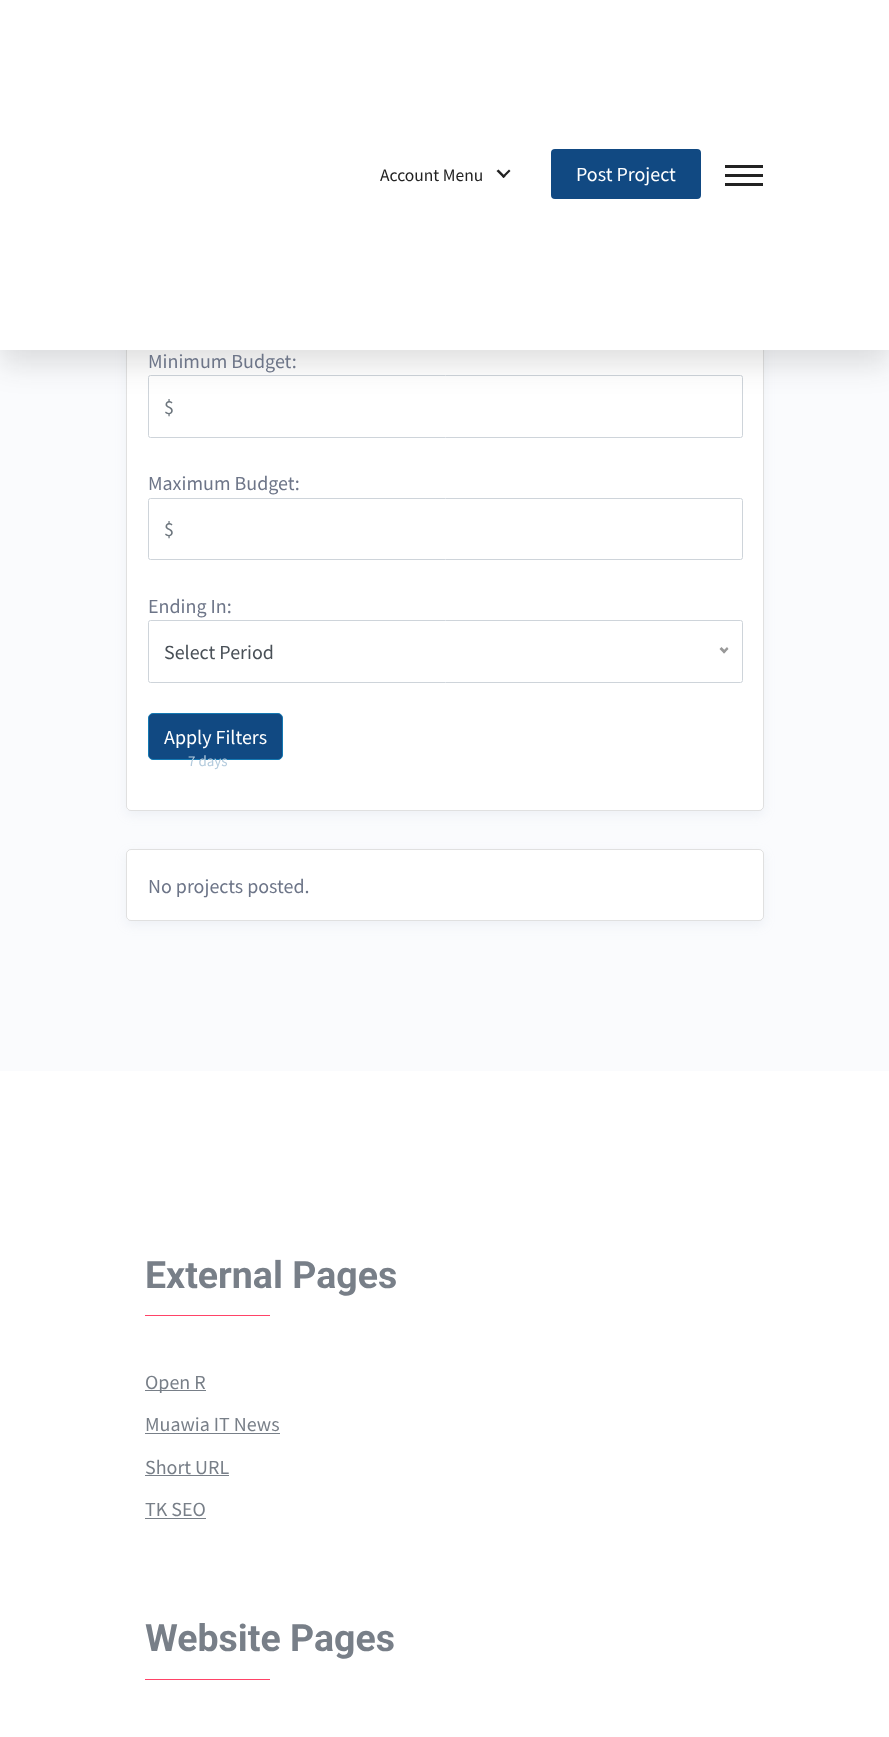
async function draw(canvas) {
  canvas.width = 889
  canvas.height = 1737
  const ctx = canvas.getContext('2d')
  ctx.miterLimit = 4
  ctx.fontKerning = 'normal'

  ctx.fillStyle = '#fafbfd'
  ctx.fillRect(0, 0, 889, 1737)
  ctx.fillStyle = '#a9b8c826'
  ctx.filter = 'blur(5.5px)'
  ctx.beginPath()
  ctx.roundRect(126, 205, 638, 610, 5)
  ctx.fill()
  ctx.filter = 'none'
  ctx.fillStyle = '#fff'
  ctx.beginPath()
  ctx.roundRect(126, 201, 638, 610, 5)
  ctx.fill()
  ctx.beginPath()
  ctx.roundRect(126.5, 201.5, 637, 609, 4.5)
  ctx.strokeStyle = '#0000001f'
  ctx.stroke()
  ctx.beginPath()
  ctx.roundRect(148.5, 375.5, 594, 62, 2)
  ctx.strokeStyle = '#ced4da'
  ctx.stroke()
  ctx.fillStyle = '#22222226'
  ctx.filter = 'blur(15.5px)'
  ctx.beginPath()
  ctx.rect(0, 13, 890, 350)
  ctx.fill()
  ctx.filter = 'none'
  ctx.fillStyle = '#fff'
  ctx.fillRect(0, 0, 889, 350)
  ctx.font = '17.5px Source Sans Pro'
  ctx.fillStyle = '#222'
  ctx.fillText('Account Menu', 380, 181)
  ctx.beginPath()
  ctx.moveTo(502, 176.5)
  ctx.lineTo(509, 169.5)
  ctx.lineTo(510.5, 171)
  ctx.lineTo(503.5, 178)
  ctx.closePath()
  ctx.fill()
  ctx.beginPath()
  ctx.moveTo(496.5, 171)
  ctx.lineTo(498.5, 169.5)
  ctx.lineTo(505.5, 176.5)
  ctx.lineTo(503.5, 178)
  ctx.closePath()
  ctx.fill()
  ctx.fillStyle = '#114982'
  ctx.beginPath()
  ctx.roundRect(551, 149, 150, 50, 4)
  ctx.fill()
  ctx.font = '20px Source Sans Pro'
  ctx.fillStyle = '#fff'
  ctx.fillText('Post Project', 576, 181)
  ctx.fillStyle = '#222'
  ctx.fillRect(725, 165, 38, 3)
  ctx.fillRect(725, 174, 38, 3)
  ctx.fillRect(725, 183, 38, 3)
  ctx.fillStyle = '#6d7588'
  ctx.fillText('Minimum Budget:', 148, 368)
  ctx.fillStyle = '#6c757d'
  ctx.fillText('$', 164, 414)
  ctx.fillStyle = '#6d7588'
  ctx.fillText('Maximum Budget:', 148, 490)
  ctx.beginPath()
  ctx.roundRect(148.5, 498.5, 594, 61, 2)
  ctx.stroke()
  ctx.fillStyle = '#6c757d'
  ctx.fillText('$', 164, 536)
  ctx.fillStyle = '#6d7588'
  ctx.fillText('Ending In:', 148, 613)
  ctx.beginPath()
  ctx.roundRect(148.5, 620.5, 594, 62, 2)
  ctx.stroke()
  ctx.fillStyle = '#495057'
  ctx.fillText('Select Period', 164, 659)
  ctx.fillStyle = '#999'
  ctx.beginPath()
  ctx.moveTo(727, 647)
  ctx.lineTo(728.5, 649)
  ctx.lineTo(724, 653.5)
  ctx.lineTo(722.5, 651.5)
  ctx.closePath()
  ctx.fill()
  ctx.beginPath()
  ctx.moveTo(721.5, 647)
  ctx.lineTo(726, 651.5)
  ctx.lineTo(724, 653.5)
  ctx.lineTo(719.5, 649)
  ctx.closePath()
  ctx.fill()
  ctx.fillStyle = '#114982'
  ctx.beginPath()
  ctx.roundRect(148.5, 713.5, 134, 46, 4.5)
  ctx.fill()
  ctx.strokeStyle = '#1479b3'
  ctx.stroke()
  ctx.font = '15px Source Sans Pro'
  ctx.fillStyle = '#b4cbdd'
  ctx.fillText('7 days', 188, 766)
  ctx.font = '20px Source Sans Pro'
  ctx.fillStyle = '#fff'
  ctx.fillText('Apply Filters', 164, 744)
  ctx.fillStyle = '#a9b8c826'
  ctx.filter = 'blur(5.5px)'
  ctx.beginPath()
  ctx.roundRect(126, 853, 638, 72, 5)
  ctx.fill()
  ctx.filter = 'none'
  ctx.fillStyle = '#fff'
  ctx.beginPath()
  ctx.roundRect(126, 849, 638, 72, 5)
  ctx.fill()
  ctx.beginPath()
  ctx.roundRect(126.5, 849.5, 637, 71, 4.5)
  ctx.strokeStyle = '#0000001f'
  ctx.stroke()
  ctx.fillStyle = '#6d7588'
  ctx.fillText('No projects posted.', 148, 893)
  ctx.fillStyle = '#fff'
  ctx.fillRect(0, 1071, 889, 666)
  ctx.font = 'bold 37.5px Roboto'
  ctx.fillStyle = '#787f88'
  ctx.fillText('External Pages', 145, 1288)
  ctx.fillStyle = '#ff4367'
  ctx.fillRect(145, 1315, 125, 1)
  ctx.fillStyle = '#787f88'
  ctx.fillRect(145, 1390, 61, 1)
  ctx.font = '20px Source Sans Pro'
  ctx.fillText('Open R', 145, 1389)
  ctx.fillText('Muawia IT News', 145, 1431)
  ctx.fillRect(145, 1433, 135, 1)
  ctx.fillText('Short URL', 145, 1474)
  ctx.fillRect(145, 1475, 84, 1)
  ctx.fillText('TK SEO', 145, 1516)
  ctx.fillRect(145, 1518, 61, 1)
  ctx.font = 'bold 37.5px Roboto'
  ctx.fillText('Website Pages', 145, 1651)
  ctx.fillStyle = '#ff4367'
  ctx.fillRect(145, 1679, 125, 1)
}

draw(document.querySelector('canvas'))
